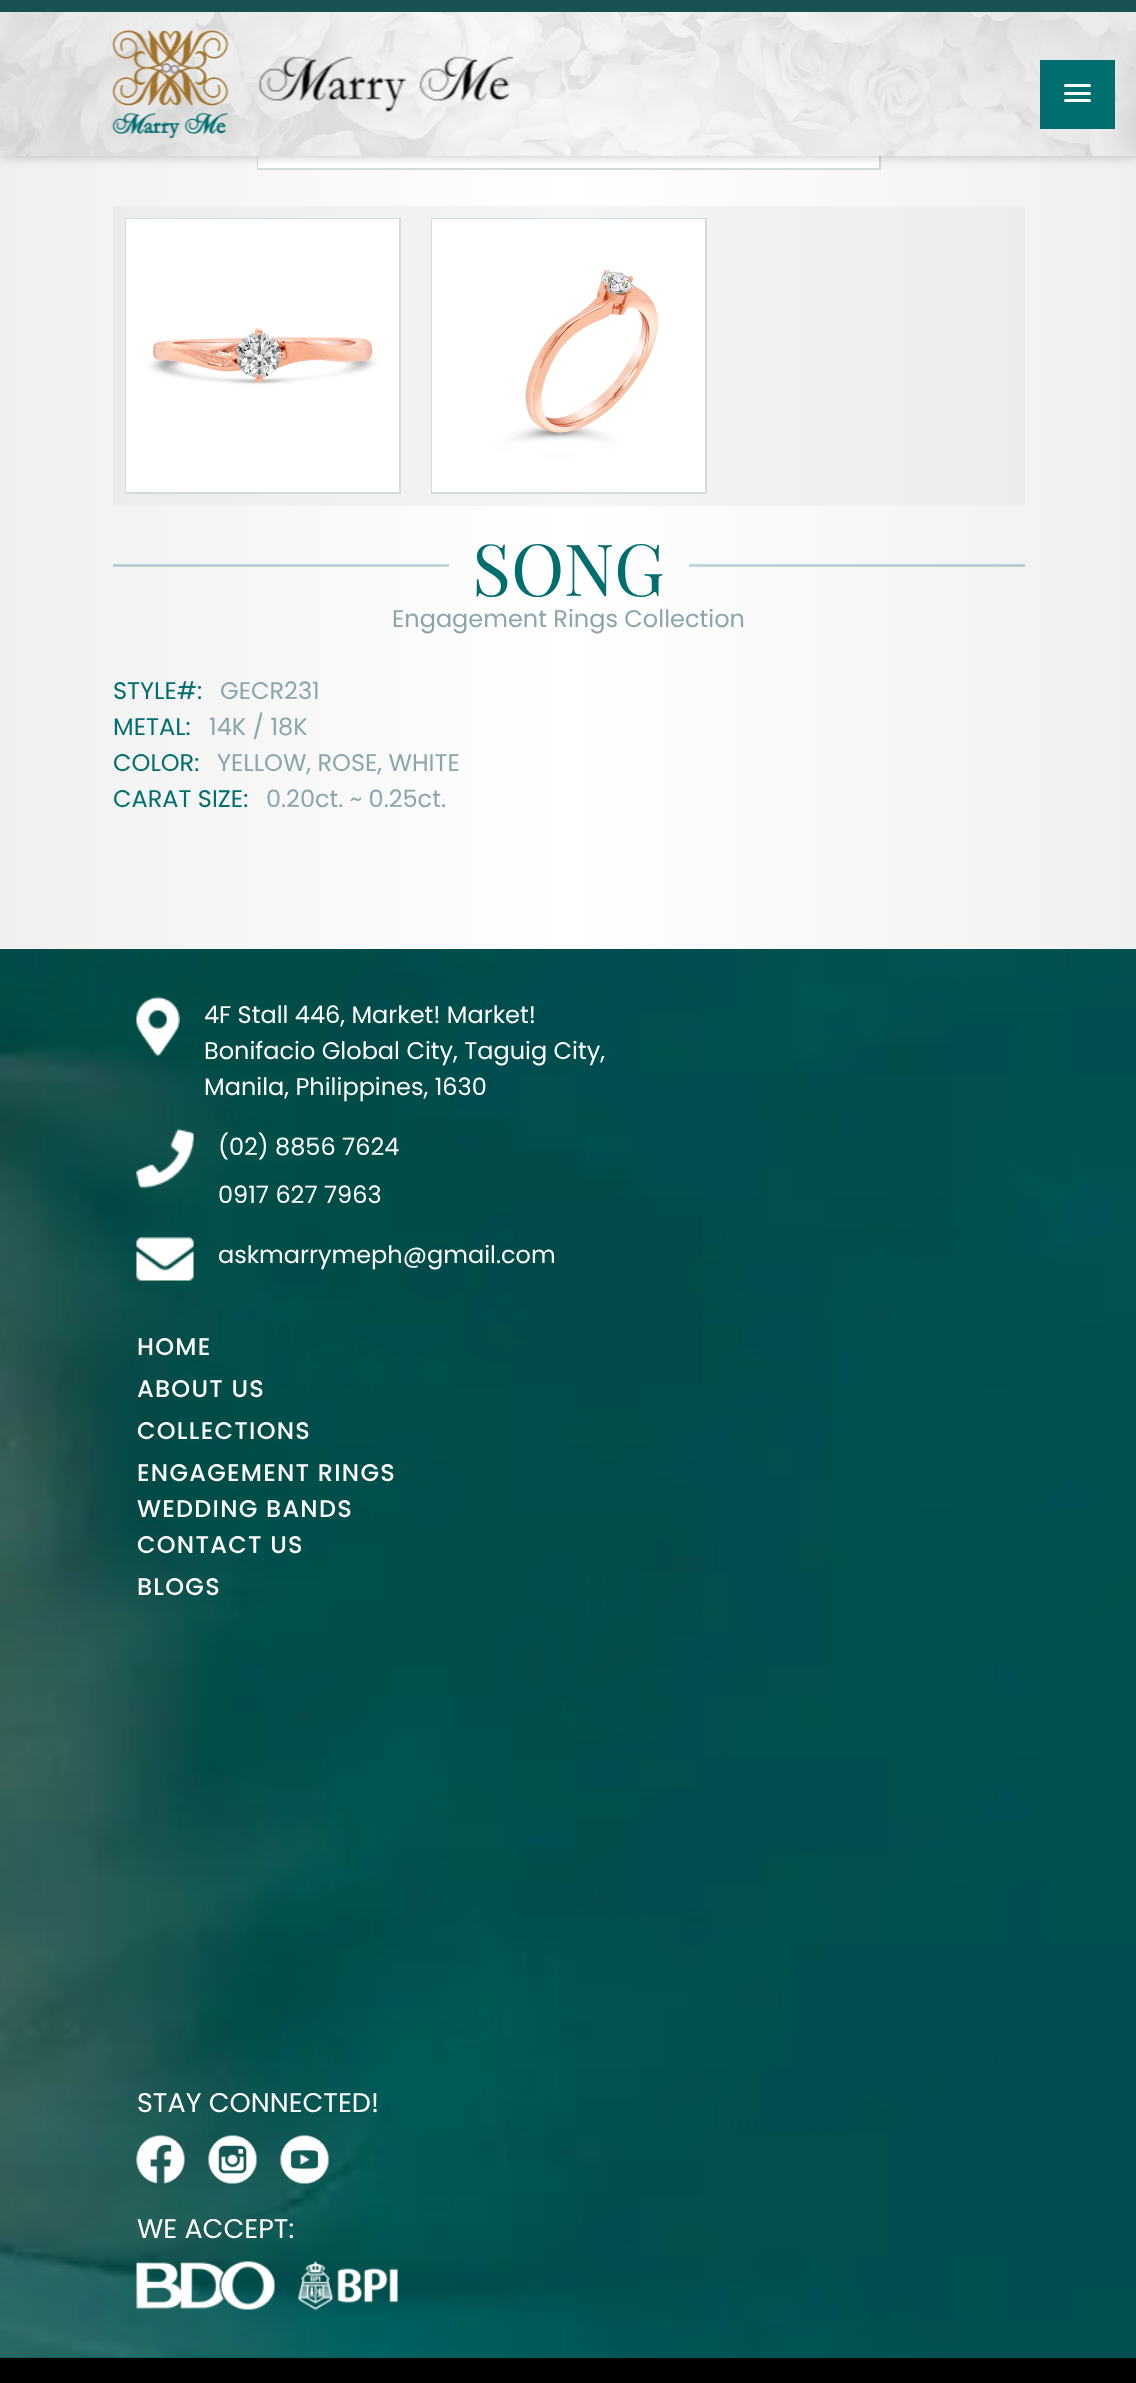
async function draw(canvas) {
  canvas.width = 1136
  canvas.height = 2383
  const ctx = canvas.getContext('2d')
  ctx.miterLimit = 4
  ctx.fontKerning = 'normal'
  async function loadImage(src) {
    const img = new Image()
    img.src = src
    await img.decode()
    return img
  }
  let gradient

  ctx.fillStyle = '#fff'
  ctx.fillRect(0, 0, 1136, 2383)
  gradient = ctx.createLinearGradient(0, 710, 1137, 710)
  gradient.addColorStop(0, '#f0f0f0')
  gradient.addColorStop(0.5, '#fff')
  gradient.addColorStop(1, '#f0f0f0')
  ctx.fillStyle = gradient
  ctx.fillRect(0, 156, 1136, 793)
  gradient = ctx.createLinearGradient(0, 710, 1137, 710)
  gradient.addColorStop(0, '#b4cfd0')
  gradient.addColorStop(0.5, '#bfdbdb')
  gradient.addColorStop(1, '#b4cfd0')
  ctx.fillStyle = gradient
  ctx.fillRect(689, 564, 336, 3)
  ctx.fillRect(113, 564, 336, 3)
  gradient = ctx.createLinearGradient(0, 710, 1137, 710)
  gradient.addColorStop(0, '#e9ebeb')
  gradient.addColorStop(0.5, '#f4f6f6')
  gradient.addColorStop(1, '#e9ebeb')
  ctx.fillStyle = gradient
  ctx.fillRect(113, 206, 912, 300)
  ctx.strokeStyle = '#d4dbdb'
  ctx.lineWidth = 2
  ctx.strokeRect(258, -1, 622, 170)
  ctx.fillStyle = '#fff'
  ctx.fillRect(258, 156, 621, 12)
  ctx.fillStyle = '#00000040'
  ctx.filter = 'blur(6px)'
  ctx.beginPath()
  ctx.rect(0, 0, 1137, 156)
  ctx.fill()
  ctx.filter = 'none'
  gradient = ctx.createLinearGradient(0, 84, 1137, 84)
  gradient.addColorStop(0, '#f0f0f0')
  gradient.addColorStop(0.5, '#fff')
  gradient.addColorStop(1, '#f0f0f0')
  ctx.fillStyle = gradient
  ctx.fillRect(0, 12, 1136, 144)
  ctx.fillStyle = '#1a5051'
  ctx.fillRect(0, 0, 1136, 12)
  ctx.drawImage(await loadImage('image0.png'), 0, 12, 1136, 144)
  ctx.drawImage(await loadImage('image1.png'), 112, 30, 117, 108)
  ctx.drawImage(await loadImage('image2.png'), 258, 56, 256, 56)
  ctx.fillStyle = '#006d6f'
  ctx.fillRect(1040, 60, 75, 69)
  ctx.fillStyle = '#fff'
  ctx.beginPath()
  ctx.roundRect(1064, 84, 27, 3, 1.5)
  ctx.fill()
  ctx.beginPath()
  ctx.roundRect(1064, 92, 27, 3, 1.5)
  ctx.fill()
  ctx.beginPath()
  ctx.roundRect(1064, 99, 27, 3, 1.5)
  ctx.fill()
  ctx.strokeRect(126, 219, 274, 274)
  ctx.drawImage(await loadImage('image3.png'), 126, 219, 273, 273)
  ctx.strokeRect(432, 219, 274, 274)
  ctx.drawImage(await loadImage('image4.png'), 432, 219, 273, 273)
  ctx.font = '72px Playfair Display'
  ctx.fillStyle = '#006d6f'
  ctx.fillText('SONG', 472, 596)
  ctx.font = '24px Poppins'
  ctx.fillStyle = '#8aa5ab'
  ctx.fillText('Engagement Rings Collection', 392, 627)
  ctx.fillStyle = '#006d6f'
  ctx.fillText('STYLE#:', 113, 699)
  ctx.fillStyle = '#8aa5ab'
  ctx.fillText('GECR231', 220, 699)
  ctx.fillStyle = '#006d6f'
  ctx.fillText('METAL:', 113, 735)
  ctx.fillStyle = '#8aa5ab'
  ctx.fillText('14K / 18K', 209, 735)
  ctx.fillStyle = '#006d6f'
  ctx.fillText('COLOR:', 113, 771)
  ctx.fillStyle = '#8aa5ab'
  ctx.fillText('YELLOW, ROSE, WHITE', 217, 771)
  ctx.fillStyle = '#006d6f'
  ctx.fillText('CARAT SIZE:', 113, 807)
  ctx.fillStyle = '#8aa5ab'
  ctx.fillText('0.20ct. ~ 0.25ct.', 266, 807)
  ctx.fillStyle = '#004f50'
  ctx.fillRect(0, 2357, 1136, 1)
  ctx.drawImage(await loadImage('image5.png'), 0, 949, 1136, 1409)
  ctx.drawImage(await loadImage('image6.png'), 136, 997, 44, 59)
  ctx.fillStyle = '#fff'
  ctx.fillText('4F Stall 446, Market! Market!', 204, 1023)
  ctx.fillText('Bonifacio Global City, Taguig City,', 204, 1059)
  ctx.fillText('Manila, Philippines, 1630', 204, 1095)
  ctx.drawImage(await loadImage('image7.png'), 136, 1129, 58, 59)
  ctx.fillText('(02) 8856 7624', 218, 1155)
  ctx.fillText('0917 627 7963', 218, 1203)
  ctx.drawImage(await loadImage('image8.png'), 136, 1237, 58, 44)
  ctx.fillText('askmarrymeph@gmail.com', 218, 1263)
  ctx.letterSpacing = '1.25px'
  ctx.font = '500 24px Poppins'
  ctx.fillText('HOME', 137, 1355)
  ctx.fillText('ABOUT US', 137, 1397)
  ctx.fillText('COLLECTIONS', 137, 1439)
  ctx.fillText('ENGAGEMENT RINGS', 137, 1481)
  ctx.fillText('WEDDING BANDS', 137, 1517)
  ctx.fillText('CONTACT US', 137, 1553)
  ctx.fillText('BLOGS', 137, 1595)
  ctx.letterSpacing = '0px'
  ctx.font = '27px Poppins'
  ctx.fillText('STAY CONNECTED!', 137, 2112)
  ctx.drawImage(await loadImage('image9.png'), 136, 2135, 49, 49)
  ctx.drawImage(await loadImage('image10.png'), 208, 2135, 49, 49)
  ctx.drawImage(await loadImage('image11.png'), 280, 2135, 49, 49)
  ctx.fillText('WE ACCEPT:', 137, 2238)
  ctx.drawImage(await loadImage('image12.png'), 136, 2261, 139, 49)
  ctx.drawImage(await loadImage('image13.png'), 298, 2261, 100, 49)
  ctx.fillStyle = '#000'
  ctx.fillRect(0, 2358, 1136, 25)
}

draw(document.querySelector('canvas'))
